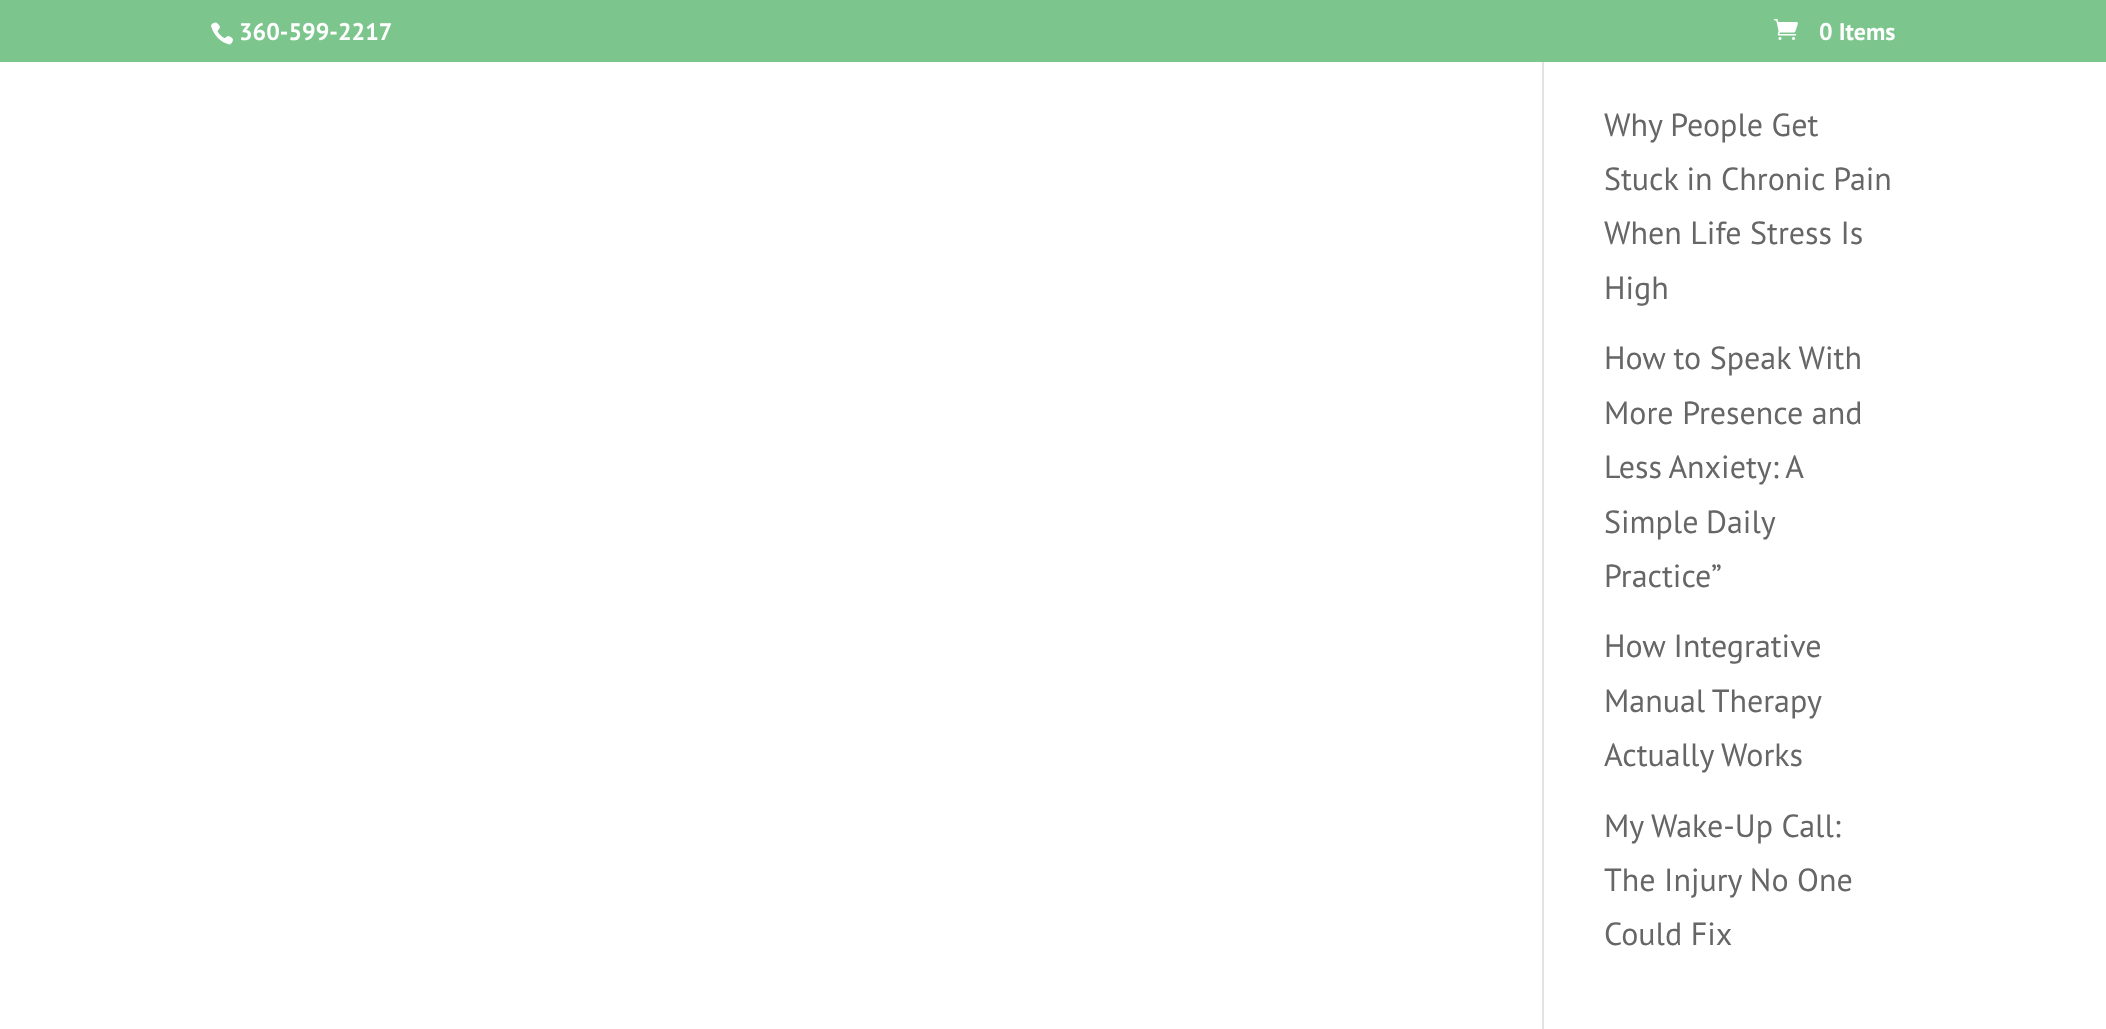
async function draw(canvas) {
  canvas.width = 2106
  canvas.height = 1029
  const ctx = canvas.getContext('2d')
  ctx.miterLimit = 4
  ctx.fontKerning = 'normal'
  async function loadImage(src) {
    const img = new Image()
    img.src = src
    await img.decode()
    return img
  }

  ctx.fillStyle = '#fff'
  ctx.fillRect(0, 0, 2106, 1029)
  ctx.fillStyle = '#7cc68d'
  ctx.fillRect(0, 0, 2106, 62)
  ctx.drawImage(await loadImage('image0.png'), 211, 22, 22, 23)
  ctx.font = 'bold 24px PT Sans'
  ctx.fillStyle = '#fff'
  ctx.fillText('360-599-2217', 239, 40)
  ctx.drawImage(await loadImage('image1.png'), 1774, 19, 24, 21)
  ctx.fillText('0 Items', 1819, 40)
  ctx.fillStyle = '#e2e2e2'
  ctx.fillRect(1542, 62, 2, 967)
  ctx.font = '32px PT Sans'
  ctx.fillStyle = '#666'
  ctx.fillText('Why People Get', 1604, 136)
  ctx.fillText('Stuck in Chronic Pain', 1604, 190)
  ctx.fillText('When Life Stress Is', 1604, 244)
  ctx.fillText('High', 1604, 299)
  ctx.fillText('How to Speak With', 1604, 369)
  ctx.fillText('More Presence and', 1604, 424)
  ctx.wordSpacing = '-1px'
  ctx.fillText('Less Anxiety: A', 1604, 478)
  ctx.fillText('Simple Daily', 1604, 533)
  ctx.wordSpacing = '0px'
  ctx.fillText('Practice”', 1604, 587)
  ctx.fillText('How Integrative', 1604, 657)
  ctx.wordSpacing = '-1px'
  ctx.fillText('Manual Therapy', 1604, 712)
  ctx.wordSpacing = '0px'
  ctx.fillText('Actually Works', 1604, 766)
  ctx.fillText('My Wake-Up Call:', 1604, 837)
  ctx.fillText('The Injury No One', 1604, 891)
  ctx.fillText('Could Fix', 1604, 945)
}

draw(document.querySelector('canvas'))
